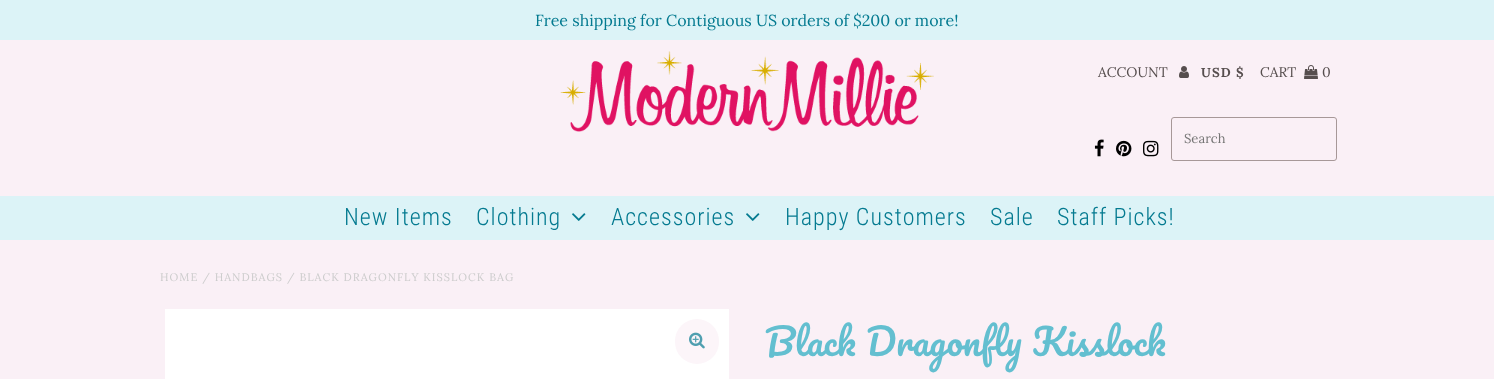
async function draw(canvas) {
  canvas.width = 1494
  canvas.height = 379
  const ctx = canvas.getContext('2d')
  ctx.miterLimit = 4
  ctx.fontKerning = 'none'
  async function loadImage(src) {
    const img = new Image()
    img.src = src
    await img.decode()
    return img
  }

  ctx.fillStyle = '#faf0f6'
  ctx.fillRect(0, 0, 1494, 379)
  ctx.fillStyle = '#dcf3f7'
  ctx.fillRect(0, 0, 1494, 40)
  ctx.font = '16px Lora'
  ctx.fillStyle = '#047a90'
  ctx.fillText('Free shipping for Contiguous US orders of $200 or more!', 535, 26)
  ctx.drawImage(await loadImage('image0.png'), 560, 51, 374, 81)
  ctx.font = '14px Lora'
  ctx.fillStyle = '#564e4e'
  ctx.fillText('ACCOUNT', 1098, 77)
  ctx.drawImage(await loadImage('image1.png'), 1179, 66, 10, 12)
  ctx.letterSpacing = '1px'
  ctx.font = 'bold 13px Lora'
  ctx.fillText('USD $', 1201, 77)
  ctx.letterSpacing = '0px'
  ctx.font = '14px Lora'
  ctx.fillText('CART', 1260, 77)
  ctx.drawImage(await loadImage('image2.png'), 1304, 65, 14, 14)
  ctx.fillText('0', 1322, 77)
  ctx.drawImage(await loadImage('image3.png'), 1094, 139, 10, 18)
  ctx.drawImage(await loadImage('image4.png'), 1116, 140, 16, 17)
  ctx.drawImage(await loadImage('image5.png'), 1143, 140, 16, 17)
  ctx.beginPath()
  ctx.roundRect(1171.5, 117.5, 165, 43, 2.5)
  ctx.strokeStyle = '#a79898'
  ctx.stroke()
  ctx.font = '13px Lora'
  ctx.fillStyle = '#757575'
  ctx.fillText('Search', 1184, 143)
  ctx.fillStyle = '#dcf3f7'
  ctx.fillRect(0, 196, 1494, 44)
  ctx.letterSpacing = '1px'
  ctx.font = '300 24px Roboto Condensed'
  ctx.fillStyle = '#047a90'
  ctx.fillText('New Items', 344, 225)
  ctx.fillText('Clothing', 476, 225)
  ctx.drawImage(await loadImage('image6.png'), 572, 213, 14, 8)
  ctx.fillText('Accessories', 611, 225)
  ctx.drawImage(await loadImage('image6.png'), 746, 213, 14, 8)
  ctx.fillText('Happy Customers', 785, 225)
  ctx.fillText('Sale', 990, 225)
  ctx.fillText('Staff Picks!', 1057, 225)
  ctx.font = '11px Lora'
  ctx.fillStyle = '#ccc'
  ctx.fillText('HOME / HANDBAGS / BLACK DRAGONFLY KISSLOCK BAG', 160, 281)
  ctx.fillStyle = '#fff'
  ctx.fillRect(165, 309, 564, 70)
  ctx.fillStyle = '#fcf5f9'
  ctx.beginPath()
  ctx.roundRect(675, 319, 44, 45, 22)
  ctx.fill()
  ctx.drawImage(await loadImage('image7.png'), 689, 332, 16, 17)
  ctx.letterSpacing = '0px'
  ctx.wordSpacing = '1px'
  ctx.font = '36px Pacifico'
  ctx.fillStyle = '#63bfd0'
  ctx.fillText('Black Dragonfly Kisslock', 765, 356)
}

draw(document.querySelector('canvas'))
